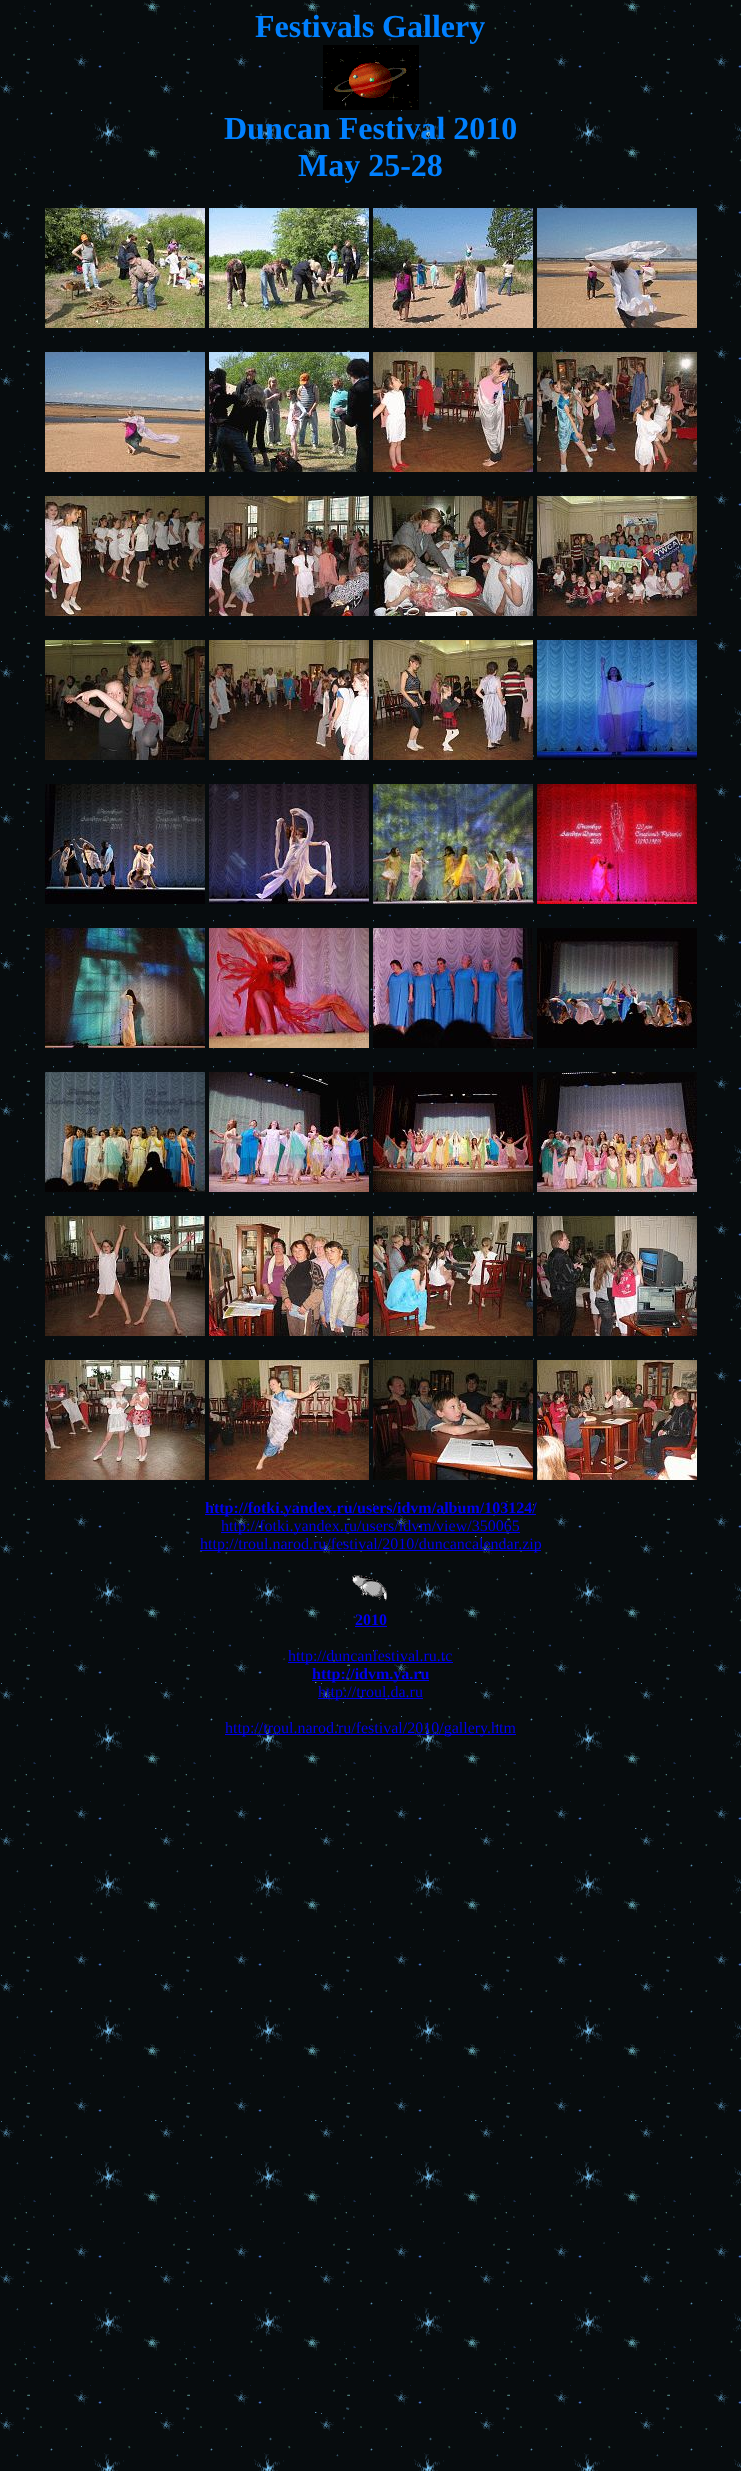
async function draw(canvas) {
  canvas.width = 741
  canvas.height = 2471
  const ctx = canvas.getContext('2d')
  ctx.miterLimit = 4
  ctx.fontKerning = 'normal'
  async function loadImage(src) {
    const img = new Image()
    img.src = src
    await img.decode()
    return img
  }

  ctx.fillStyle = '#fff'
  ctx.fillRect(0, 0, 741, 2471)
  ctx.drawImage(await loadImage('image0.png'), 0, 0, 741, 2471)
  ctx.font = 'bold 32px Liberation Serif'
  ctx.fillStyle = '#0080ff'
  ctx.fillText('Festivals Gallery', 255, 37)
  ctx.drawImage(await loadImage('image1.png'), 323, 45, 96, 65)
  ctx.fillText('Duncan Festival 2010', 224, 139)
  ctx.fillText('May 25-28', 298, 176)
  ctx.drawImage(await loadImage('image2.png'), 45, 208, 160, 120)
  ctx.drawImage(await loadImage('image3.png'), 209, 208, 160, 120)
  ctx.drawImage(await loadImage('image4.png'), 373, 208, 160, 120)
  ctx.drawImage(await loadImage('image5.png'), 537, 208, 160, 120)
  ctx.drawImage(await loadImage('image6.png'), 45, 352, 160, 120)
  ctx.drawImage(await loadImage('image7.png'), 209, 352, 160, 120)
  ctx.drawImage(await loadImage('image8.png'), 373, 352, 160, 120)
  ctx.drawImage(await loadImage('image9.png'), 537, 352, 160, 120)
  ctx.drawImage(await loadImage('image10.png'), 45, 496, 160, 120)
  ctx.drawImage(await loadImage('image11.png'), 209, 496, 160, 120)
  ctx.drawImage(await loadImage('image12.png'), 373, 496, 160, 120)
  ctx.drawImage(await loadImage('image13.png'), 537, 496, 160, 120)
  ctx.drawImage(await loadImage('image14.png'), 45, 640, 160, 120)
  ctx.drawImage(await loadImage('image15.png'), 209, 640, 160, 120)
  ctx.drawImage(await loadImage('image16.png'), 373, 640, 160, 120)
  ctx.drawImage(await loadImage('image17.png'), 537, 640, 160, 120)
  ctx.drawImage(await loadImage('image18.png'), 45, 784, 160, 120)
  ctx.drawImage(await loadImage('image19.png'), 209, 784, 160, 120)
  ctx.drawImage(await loadImage('image20.png'), 373, 784, 160, 120)
  ctx.drawImage(await loadImage('image21.png'), 537, 784, 160, 120)
  ctx.drawImage(await loadImage('image22.png'), 45, 928, 160, 120)
  ctx.drawImage(await loadImage('image23.png'), 209, 928, 160, 120)
  ctx.drawImage(await loadImage('image24.png'), 373, 928, 160, 120)
  ctx.drawImage(await loadImage('image25.png'), 537, 928, 160, 120)
  ctx.drawImage(await loadImage('image26.png'), 45, 1072, 160, 120)
  ctx.drawImage(await loadImage('image27.png'), 209, 1072, 160, 120)
  ctx.drawImage(await loadImage('image28.png'), 373, 1072, 160, 120)
  ctx.drawImage(await loadImage('image29.png'), 537, 1072, 160, 120)
  ctx.drawImage(await loadImage('image30.png'), 45, 1216, 160, 120)
  ctx.drawImage(await loadImage('image31.png'), 209, 1216, 160, 120)
  ctx.drawImage(await loadImage('image32.png'), 373, 1216, 160, 120)
  ctx.drawImage(await loadImage('image33.png'), 537, 1216, 160, 120)
  ctx.drawImage(await loadImage('image34.png'), 45, 1360, 160, 120)
  ctx.drawImage(await loadImage('image35.png'), 209, 1360, 160, 120)
  ctx.drawImage(await loadImage('image36.png'), 373, 1360, 160, 120)
  ctx.drawImage(await loadImage('image37.png'), 537, 1360, 160, 120)
  ctx.fillStyle = '#00e'
  ctx.fillRect(205, 1514, 331, 1)
  ctx.font = 'bold 16px Liberation Serif'
  ctx.fillText('http://fotki.yandex.ru/users/idvm/album/103124/', 205, 1513)
  ctx.fillRect(221, 1532, 299, 1)
  ctx.font = '16px Liberation Serif'
  ctx.fillText('http://fotki.yandex.ru/users/idvm/view/350065', 221, 1531)
  ctx.fillRect(200, 1550, 341, 1)
  ctx.fillText('http://troul.narod.ru/festival/2010/duncancalendar.zip', 200, 1549)
  ctx.drawImage(await loadImage('image38.png'), 352, 1575, 35, 26)
  ctx.font = 'bold 16px Liberation Serif'
  ctx.fillText('2010', 355, 1625)
  ctx.fillRect(355, 1626, 32, 1)
  ctx.fillRect(288, 1662, 165, 1)
  ctx.font = '16px Liberation Serif'
  ctx.fillText('http://duncanfestival.ru.tc', 288, 1661)
  ctx.fillRect(312, 1680, 117, 1)
  ctx.font = 'bold 16px Liberation Serif'
  ctx.fillText('http://idvm.ya.ru', 312, 1679)
  ctx.fillRect(318, 1698, 105, 1)
  ctx.font = '16px Liberation Serif'
  ctx.fillText('http://troul.da.ru', 318, 1697)
  ctx.fillRect(225, 1734, 291, 1)
  ctx.fillText('http://troul.narod.ru/festival/2010/gallery.htm', 225, 1733)
}

draw(document.querySelector('canvas'))
